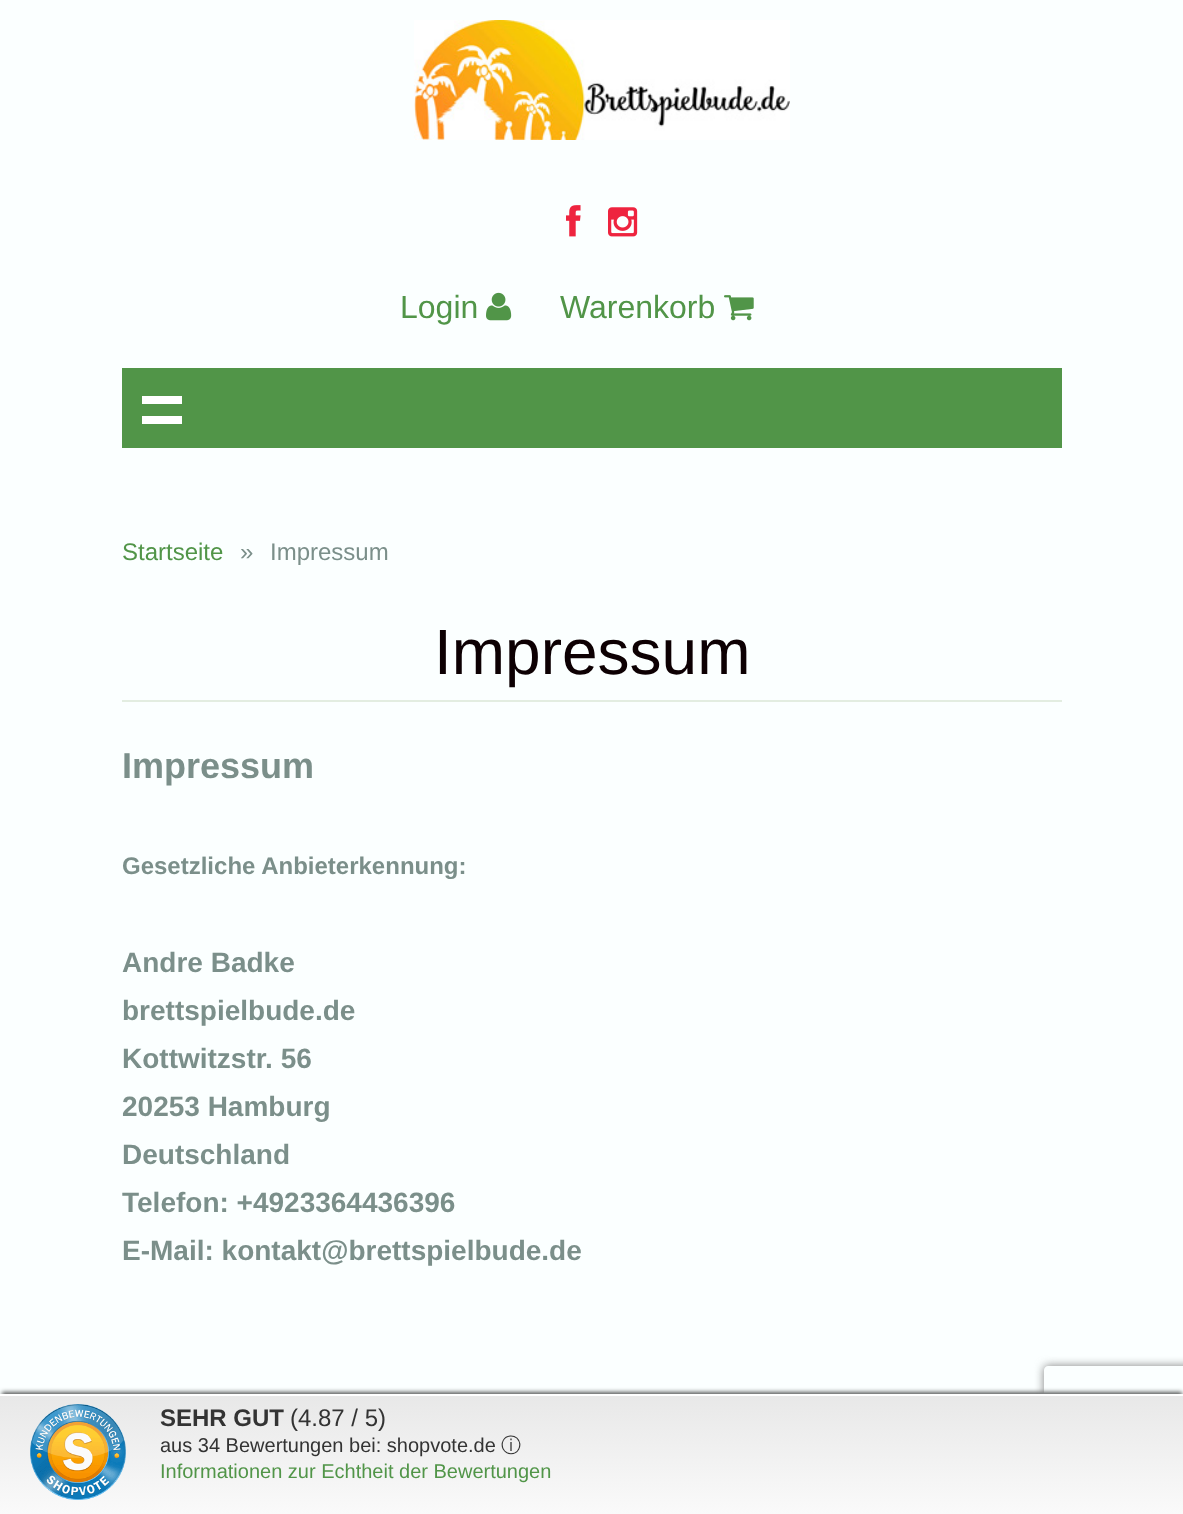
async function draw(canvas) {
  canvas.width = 1183
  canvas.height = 1514
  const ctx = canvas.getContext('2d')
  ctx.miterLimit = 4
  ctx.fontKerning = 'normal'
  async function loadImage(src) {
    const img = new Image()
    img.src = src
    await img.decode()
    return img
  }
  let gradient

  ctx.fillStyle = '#fbffff'
  ctx.fillRect(0, 0, 1183, 1514)
  ctx.drawImage(await loadImage('image0.png'), 414, 20, 376, 120)
  ctx.drawImage(await loadImage('image1.png'), 566, 205, 15, 32)
  ctx.drawImage(await loadImage('image2.png'), 608, 207, 30, 30)
  ctx.font = '32px Liberation Sans'
  ctx.fillStyle = '#519548'
  ctx.fillText('Login', 400, 318)
  ctx.drawImage(await loadImage('image3.png'), 486, 292, 26, 29)
  ctx.fillText('Warenkorb', 560, 318)
  ctx.drawImage(await loadImage('image4.png'), 724, 295, 30, 26)
  ctx.fillRect(122, 368, 940, 80)
  ctx.fillStyle = '#fff'
  ctx.fillRect(142, 396, 40, 8)
  ctx.fillRect(142, 416, 40, 8)
  ctx.font = '24px Liberation Sans'
  ctx.fillStyle = '#519548'
  ctx.fillText('Startseite', 122, 560)
  ctx.fillStyle = '#7b8f8a'
  ctx.fillText('»', 240, 560)
  ctx.fillText('Impressum', 270, 560)
  ctx.fillStyle = '#e3ede1'
  ctx.fillRect(122, 700, 940, 2)
  ctx.font = '64px Liberation Sans'
  ctx.fillStyle = '#0d0003'
  ctx.fillText('Impressum', 434, 674)
  ctx.font = 'bold 36px Liberation Sans'
  ctx.fillStyle = '#7b8f8a'
  ctx.fillText('Impressum', 122, 778)
  ctx.font = 'bold 24px Liberation Sans'
  ctx.fillText('Gesetzliche Anbieterkennung:', 122, 874)
  ctx.font = 'bold 28px Liberation Sans'
  ctx.fillText('Andre Badke', 122, 972)
  ctx.fillText('brettspielbude.de', 122, 1020)
  ctx.fillText('Kottwitzstr. 56', 122, 1068)
  ctx.fillText('20253 Hamburg', 122, 1116)
  ctx.fillText('Deutschland', 122, 1164)
  ctx.fillText('Telefon: +4923364436396', 122, 1212)
  ctx.fillText('E-Mail: kontakt@brettspielbude.de', 122, 1260)
  ctx.fillStyle = '#000000a6'
  ctx.filter = 'blur(2px)'
  ctx.beginPath()
  ctx.rect(2, 1392, 1180, 116)
  ctx.fill()
  ctx.filter = 'none'
  ctx.save()
  ctx.beginPath()
  ctx.moveTo(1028, 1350)
  ctx.lineTo(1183, 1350)
  ctx.lineTo(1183, 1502)
  ctx.lineTo(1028, 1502)
  ctx.closePath()
  ctx.moveTo(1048, 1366)
  ctx.lineTo(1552, 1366)
  ctx.bezierCurveTo(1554, 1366, 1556, 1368, 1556, 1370)
  ctx.lineTo(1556, 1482)
  ctx.bezierCurveTo(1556, 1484, 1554, 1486, 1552, 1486)
  ctx.lineTo(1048, 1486)
  ctx.bezierCurveTo(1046, 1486, 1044, 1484, 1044, 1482)
  ctx.lineTo(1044, 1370)
  ctx.bezierCurveTo(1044, 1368, 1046, 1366, 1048, 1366)
  ctx.closePath()
  ctx.clip('evenodd')
  ctx.fillStyle = '#808080'
  ctx.filter = 'blur(5px)'
  ctx.beginPath()
  ctx.roundRect(1044, 1366, 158, 120, 4)
  ctx.fill()
  ctx.filter = 'none'
  ctx.restore()
  gradient = ctx.createLinearGradient(592, 1396, 592, 1514)
  gradient.addColorStop(0, '#f0f0f0')
  gradient.addColorStop(0, '#e8e8e8')
  gradient.addColorStop(1, '#fafafa')
  ctx.fillStyle = gradient
  ctx.fillRect(0, 1396, 1183, 118)
  ctx.fillStyle = '#fff'
  ctx.fillRect(0, 1394, 1183, 2)
  ctx.drawImage(await loadImage('image5.png'), 30, 1404, 96, 96)
  ctx.font = 'bold 24px Liberation Sans'
  ctx.fillStyle = '#333'
  ctx.fillText('SEHR GUT', 160, 1426)
  ctx.font = '24px Liberation Sans'
  ctx.fillText('(4.87 / 5)', 290, 1426)
  ctx.font = '20px Liberation Sans'
  ctx.fillText('aus 34 Bewertungen bei: shopvote.de', 160, 1452)
  ctx.font = '500 20px WenQuanYi Zen Hei'
  ctx.fillText('ⓘ', 501, 1452)
  ctx.font = '20px Liberation Sans'
  ctx.fillStyle = '#519548'
  ctx.fillText('Informationen zur Echtheit der Bewertungen', 160, 1478)
}

draw(document.querySelector('canvas'))
